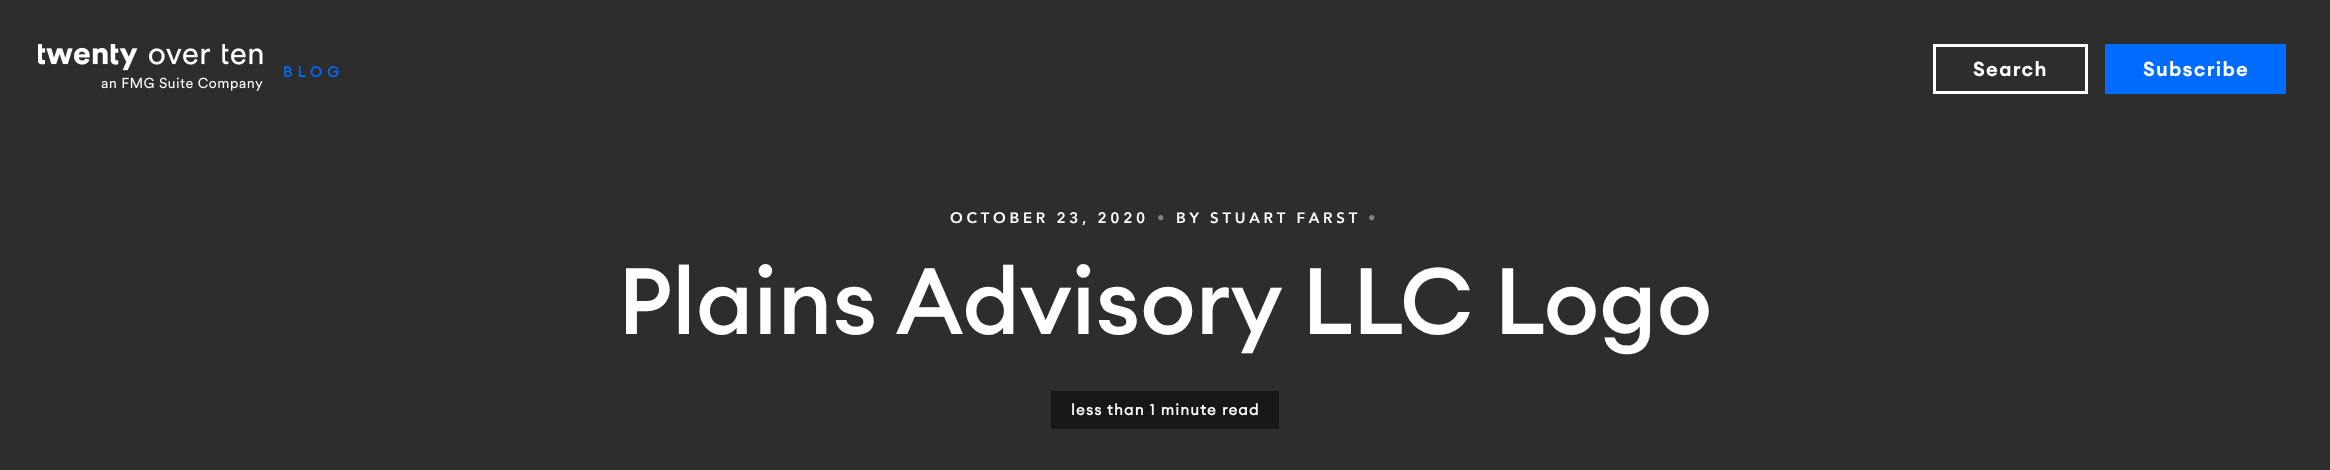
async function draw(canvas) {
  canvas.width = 2330
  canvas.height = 470
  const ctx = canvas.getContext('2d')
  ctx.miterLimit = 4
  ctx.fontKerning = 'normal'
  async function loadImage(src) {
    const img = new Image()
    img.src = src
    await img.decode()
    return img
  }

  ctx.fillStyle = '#2d2d2d'
  ctx.fillRect(0, 0, 2330, 470)
  ctx.drawImage(await loadImage('image0.png'), 38, 44, 225, 47)
  ctx.letterSpacing = '5px'
  ctx.font = '500 15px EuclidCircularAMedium'
  ctx.fillStyle = '#006bff'
  ctx.fillText('BLOG', 283, 77)
  ctx.strokeStyle = '#fff'
  ctx.lineWidth = 3
  ctx.strokeRect(1934.5, 45.5, 152, 47)
  ctx.letterSpacing = '1.25px'
  ctx.font = '600 20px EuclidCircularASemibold'
  ctx.fillStyle = '#fff'
  ctx.fillText('Search', 1973, 76)
  ctx.fillStyle = '#006bff'
  ctx.fillRect(2105, 44, 181, 50)
  ctx.fillStyle = '#fff'
  ctx.fillText('Subscribe', 2143, 76)
  ctx.letterSpacing = '3.75px'
  ctx.font = '15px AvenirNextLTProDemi'
  ctx.fillText('OCTOBER 23, 2020', 950, 223)
  ctx.fillStyle = '#818181'
  ctx.fillText('•', 1157, 223)
  ctx.fillStyle = '#fff'
  ctx.fillText('BY STUART FARST', 1176, 223)
  ctx.fillStyle = '#818181'
  ctx.fillText('•', 1368, 223)
  ctx.letterSpacing = '0px'
  ctx.font = '500 92.5px EuclidCircularAMedium'
  ctx.fillStyle = '#fff'
  ctx.fillText('Plains Advisory LLC Logo', 618, 334)
  ctx.fillStyle = '#171717'
  ctx.fillRect(1051, 391, 228, 38)
  ctx.letterSpacing = '1.25px'
  ctx.font = 'bold 15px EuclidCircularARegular'
  ctx.fillStyle = '#fff'
  ctx.fillText('less than 1 minute read', 1071, 415)
}

draw(document.querySelector('canvas'))
